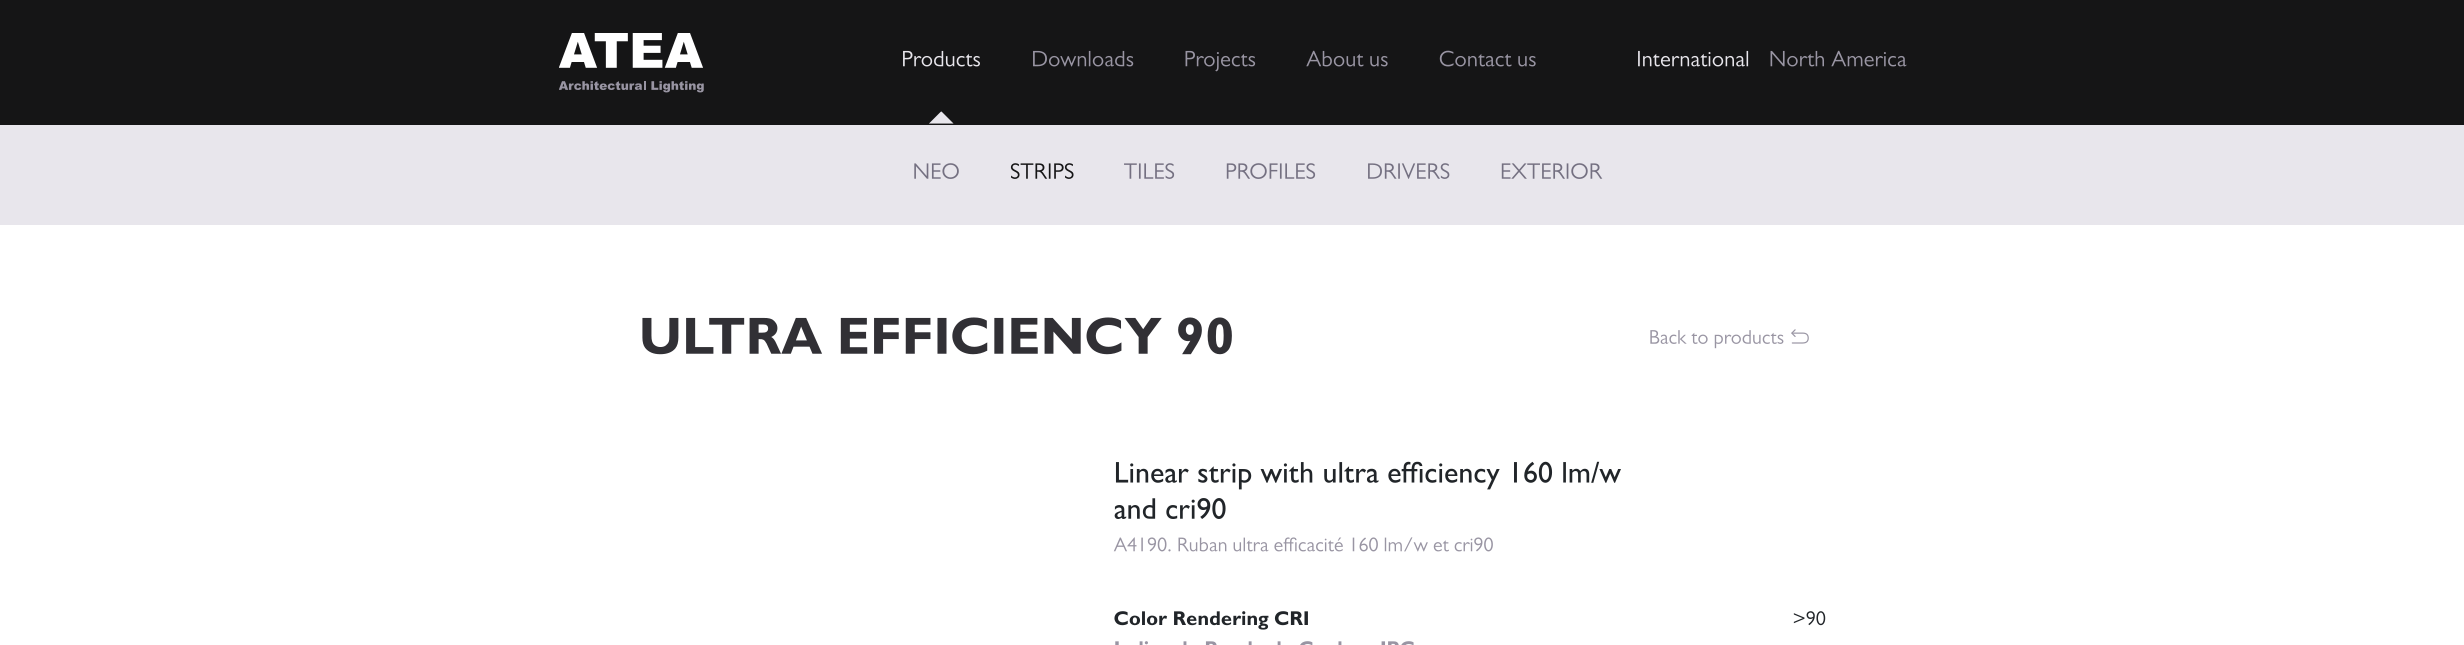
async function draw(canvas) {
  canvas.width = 2464
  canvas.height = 645
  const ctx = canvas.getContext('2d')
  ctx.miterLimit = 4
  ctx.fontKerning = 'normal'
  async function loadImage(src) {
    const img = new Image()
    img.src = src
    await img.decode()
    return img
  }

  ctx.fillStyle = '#fff'
  ctx.fillRect(0, 0, 2464, 645)
  ctx.fillStyle = '#151516'
  ctx.fillRect(0, 0, 2464, 125)
  ctx.drawImage(await loadImage('image0.png'), 559, 33, 145, 60)
  ctx.drawImage(await loadImage('image1.png'), 903, 50, 77, 17)
  ctx.drawImage(await loadImage('image2.png'), 929, 111, 25, 13)
  ctx.fillStyle = '#e8e6ec'
  ctx.fillRect(0, 125, 2464, 100)
  ctx.drawImage(await loadImage('image3.png'), 914, 163, 45, 16)
  ctx.drawImage(await loadImage('image4.png'), 1010, 163, 64, 16)
  ctx.drawImage(await loadImage('image5.png'), 1124, 163, 51, 16)
  ctx.drawImage(await loadImage('image6.png'), 1226, 163, 90, 16)
  ctx.drawImage(await loadImage('image7.png'), 1368, 163, 82, 16)
  ctx.drawImage(await loadImage('image8.png'), 1501, 163, 102, 16)
  ctx.drawImage(await loadImage('image9.png'), 1033, 50, 101, 17)
  ctx.drawImage(await loadImage('image10.png'), 1185, 50, 71, 22)
  ctx.drawImage(await loadImage('image11.png'), 1306, 50, 82, 17)
  ctx.drawImage(await loadImage('image12.png'), 1439, 50, 97, 17)
  ctx.drawImage(await loadImage('image13.png'), 1638, 50, 22, 17)
  ctx.drawImage(await loadImage('image14.png'), 1660, 50, 89, 17)
  ctx.drawImage(await loadImage('image15.png'), 1770, 50, 15, 17)
  ctx.drawImage(await loadImage('image16.png'), 1787, 50, 37, 17)
  ctx.drawImage(await loadImage('image17.png'), 1831, 50, 16, 17)
  ctx.drawImage(await loadImage('image18.png'), 1847, 52, 60, 15)
  ctx.drawImage(await loadImage('image19.png'), 642, 317, 590, 38)
  ctx.drawImage(await loadImage('image20.png'), 1650, 330, 134, 19)
  ctx.drawImage(await loadImage('image21.png'), 1791, 329, 18, 15)
  ctx.drawImage(await loadImage('image22.png'), 1115, 461, 506, 29)
  ctx.drawImage(await loadImage('image23.png'), 1114, 498, 112, 21)
  ctx.drawImage(await loadImage('image24.png'), 1113, 537, 380, 15)
  ctx.drawImage(await loadImage('image25.png'), 1114, 611, 194, 19)
  ctx.drawImage(await loadImage('image26.png'), 1115, 641, 299, 4)
  ctx.drawImage(await loadImage('image27.png'), 1793, 611, 33, 15)
}

draw(document.querySelector('canvas'))
